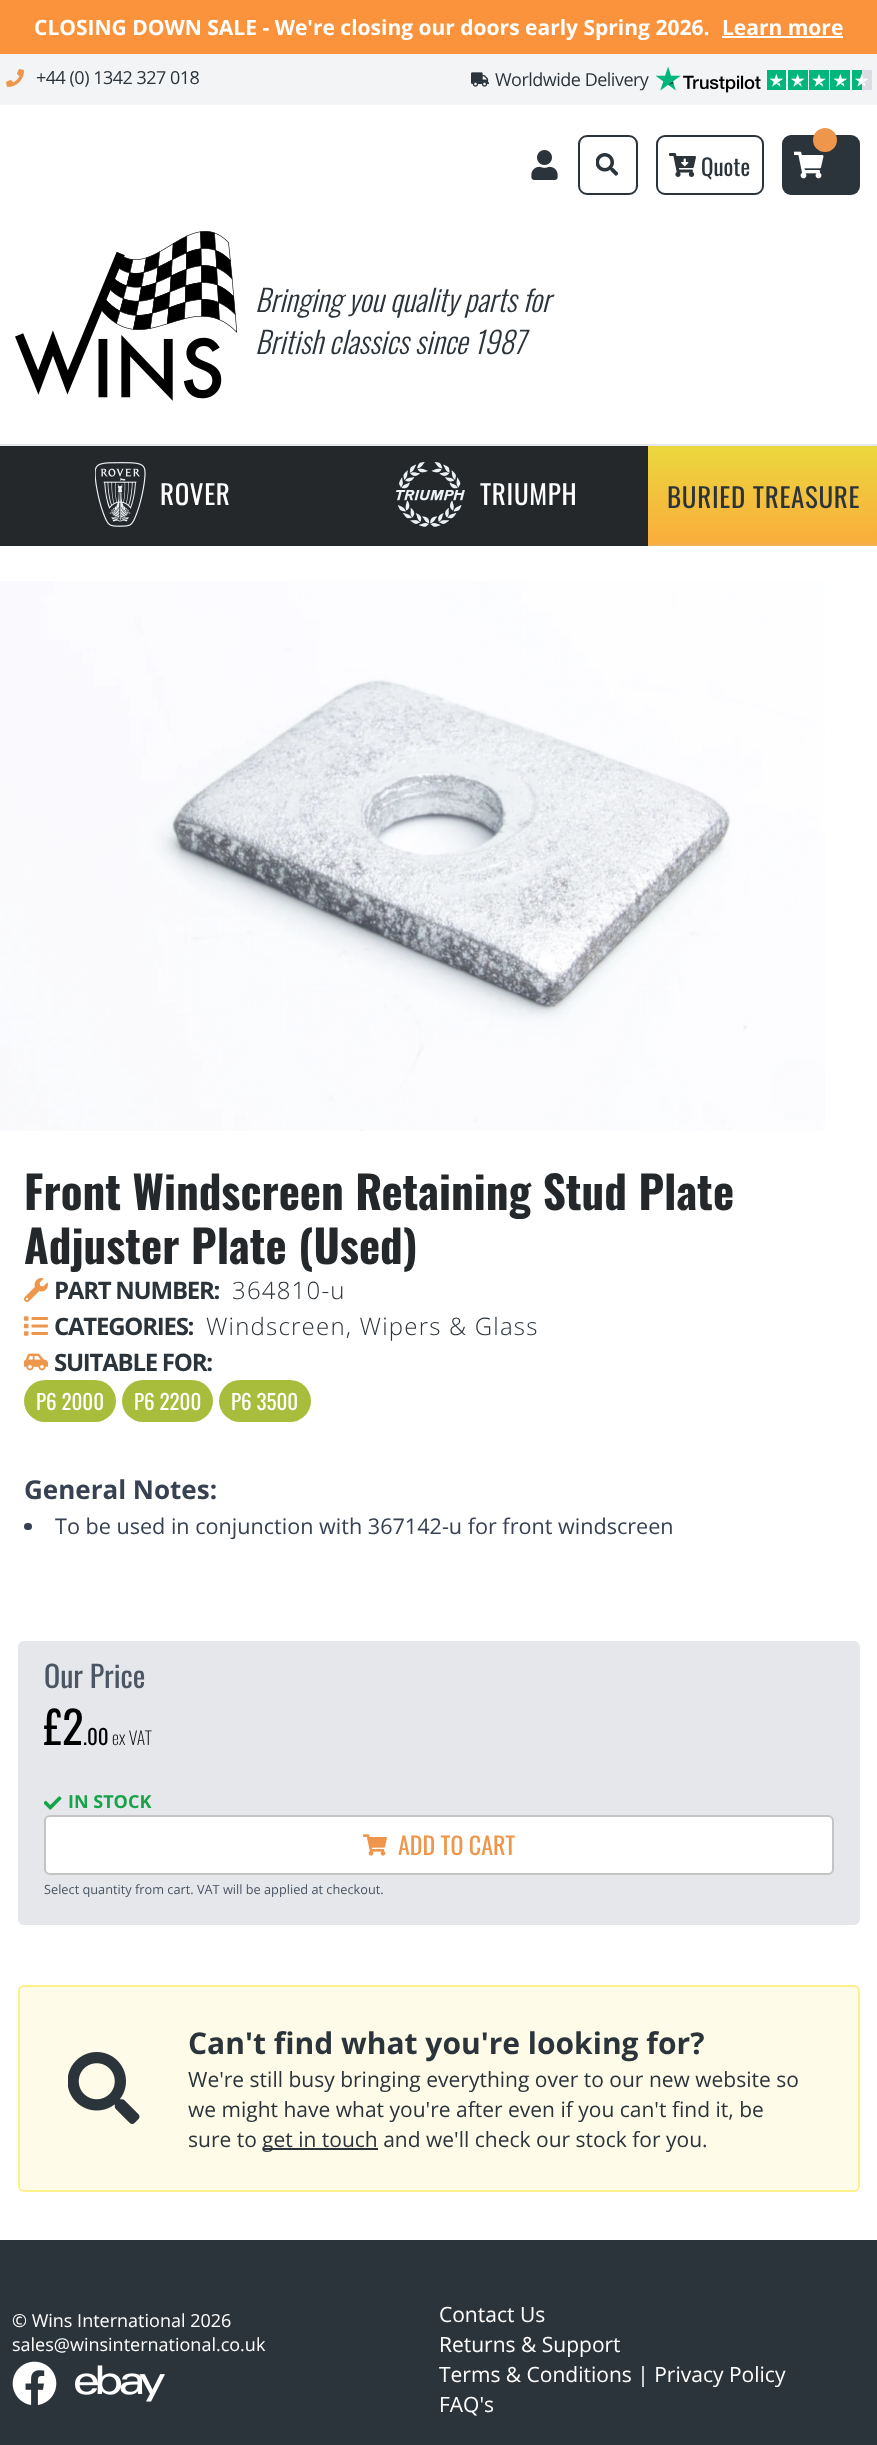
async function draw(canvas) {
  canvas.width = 877
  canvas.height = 2445
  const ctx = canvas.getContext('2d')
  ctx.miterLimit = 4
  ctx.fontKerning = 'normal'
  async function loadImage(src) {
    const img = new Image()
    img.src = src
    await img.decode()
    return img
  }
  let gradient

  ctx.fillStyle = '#fff'
  ctx.fillRect(0, 0, 877, 2445)
  ctx.fillStyle = '#fb923c'
  ctx.fillRect(0, 0, 877, 54)
  ctx.font = 'bold 21px Open Sans'
  ctx.fillStyle = '#fff'
  ctx.fillText('CLOSING DOWN SALE - We\'re closing our doors early Spring 2026.', 34, 35)
  ctx.fillText('Learn more', 722, 35)
  ctx.fillRect(722, 36, 121, 2)
  ctx.fillStyle = '#f3f4f6'
  ctx.fillRect(0, 54, 877, 51)
  ctx.drawImage(await loadImage('image0.png'), 6, 69, 18, 18)
  ctx.letterSpacing = '-0.5px'
  ctx.font = '18px Open Sans'
  ctx.fillStyle = '#2c343b'
  ctx.fillText('+44 (0) 1342 327 018', 36, 84)
  ctx.drawImage(await loadImage('image1.png'), 471, 72, 18, 15)
  ctx.fillText('Worldwide Delivery', 495, 86)
  ctx.drawImage(await loadImage('image2.png'), 656, 66, 105, 27)
  ctx.drawImage(await loadImage('image3.png'), 767, 70, 105, 20)
  ctx.fillStyle = '#e5e7eb'
  ctx.fillRect(0, 444, 877, 2)
  ctx.drawImage(await loadImage('image4.png'), 531, 150, 27, 30)
  ctx.beginPath()
  ctx.roundRect(579, 136, 58, 58, 8)
  ctx.strokeStyle = '#2c343b'
  ctx.lineWidth = 2
  ctx.stroke()
  ctx.drawImage(await loadImage('image5.png'), 596, 153, 22, 23)
  ctx.beginPath()
  ctx.roundRect(657, 136, 106, 58, 8)
  ctx.stroke()
  ctx.drawImage(await loadImage('image6.png'), 669, 153, 27, 24)
  ctx.letterSpacing = '0px'
  ctx.font = '23px Oswald'
  ctx.fillStyle = '#2c343b'
  ctx.fillText('Quote', 701, 176)
  ctx.beginPath()
  ctx.roundRect(782, 135, 78, 60, 9)
  ctx.fill()
  ctx.drawImage(await loadImage('image7.png'), 794, 151, 30, 28)
  ctx.fillStyle = '#ee964b'
  ctx.beginPath()
  ctx.arc(825, 140, 12, 0, 2 * Math.PI)
  ctx.fill()
  ctx.drawImage(await loadImage('image8.png'), 15, 231, 223, 170)
  ctx.font = 'italic 300 30px Oswald'
  ctx.fillStyle = '#2c343b'
  ctx.fillText('Bringing you quality parts for', 255, 312)
  ctx.fillText('British classics since 1987', 255, 354)
  ctx.fillStyle = '#24282b'
  ctx.fillRect(0, 446, 648, 100)
  ctx.drawImage(await loadImage('image9.png'), 95, 462, 51, 65)
  ctx.letterSpacing = '0.7px'
  ctx.font = '27px Oswald'
  ctx.fillStyle = '#fff'
  ctx.fillText('ROVER', 160, 505)
  ctx.drawImage(await loadImage('image10.png'), 396, 462, 69, 65)
  ctx.fillText('TRIUMPH', 480, 505)
  gradient = ctx.createLinearGradient(763, 546, 763, 446)
  gradient.addColorStop(0, '#edb464')
  gradient.addColorStop(0.03, '#faad3c')
  gradient.addColorStop(1, '#ebd73e')
  ctx.fillStyle = gradient
  ctx.fillRect(648, 446, 229, 100)
  ctx.fillStyle = '#2c343b'
  ctx.fillText('BURIED TREASURE', 667, 508)
  ctx.drawImage(await loadImage('image11.png'), 0, 581, 825, 550)
  ctx.letterSpacing = '0px'
  ctx.font = 'bold 45px Oswald'
  ctx.fillStyle = '#24282b'
  ctx.fillText('Front Windscreen Retaining Stud Plate', 24, 1210)
  ctx.fillText('Adjuster Plate (Used)', 24, 1264)
  ctx.drawImage(await loadImage('image12.png'), 24, 1278, 24, 24)
  ctx.letterSpacing = '-1.25px'
  ctx.font = 'bold 24px Open Sans'
  ctx.fillStyle = '#2c343b'
  ctx.fillText('PART NUMBER:', 54, 1299)
  ctx.letterSpacing = '1.2px'
  ctx.font = '300 24px Open Sans'
  ctx.fillText('364810-u', 232, 1299)
  ctx.drawImage(await loadImage('image13.png'), 24, 1316, 24, 20)
  ctx.letterSpacing = '-1.25px'
  ctx.font = 'bold 24px Open Sans'
  ctx.fillText('CATEGORIES:', 54, 1335)
  ctx.letterSpacing = '1.2px'
  ctx.font = '300 24px Open Sans'
  ctx.fillText('Windscreen, Wipers & Glass', 206, 1335)
  ctx.drawImage(await loadImage('image14.png'), 24, 1353, 24, 18)
  ctx.letterSpacing = '-1.25px'
  ctx.font = 'bold 24px Open Sans'
  ctx.fillText('SUITABLE FOR:', 54, 1371)
  ctx.fillStyle = '#a9bd3d'
  ctx.beginPath()
  ctx.roundRect(24, 1380, 92, 42, 21)
  ctx.fill()
  ctx.letterSpacing = '0px'
  ctx.font = '21px Oswald'
  ctx.fillStyle = '#fff'
  ctx.fillText('P6 2000', 36, 1410)
  ctx.fillStyle = '#a9bd3d'
  ctx.beginPath()
  ctx.roundRect(122, 1380, 91, 42, 21)
  ctx.fill()
  ctx.fillStyle = '#fff'
  ctx.fillText('P6 2200', 134, 1410)
  ctx.fillStyle = '#a9bd3d'
  ctx.beginPath()
  ctx.roundRect(219, 1380, 92, 42, 21)
  ctx.fill()
  ctx.fillStyle = '#fff'
  ctx.fillText('P6 3500', 231, 1410)
  ctx.font = 'bold 26px Open Sans'
  ctx.fillStyle = '#374151'
  ctx.fillText('General Notes:', 24, 1499)
  ctx.beginPath()
  ctx.roundRect(24, 1523, 8, 7, 3.5)
  ctx.fill()
  ctx.font = '21.6px Open Sans'
  ctx.fillText('To be used in conjunction with 367142-u for front windscreen', 55, 1534)
  ctx.fillStyle = '#e5e7eb'
  ctx.beginPath()
  ctx.roundRect(19, 1642, 840, 282, 5)
  ctx.fill()
  ctx.strokeStyle = '#e5e7eb'
  ctx.stroke()
  ctx.font = '30px Oswald'
  ctx.fillStyle = '#4b5563'
  ctx.fillText('Our Price', 44, 1688)
  ctx.font = '45px Oswald'
  ctx.fillStyle = '#000'
  ctx.fillText('£2', 44, 1745)
  ctx.font = '21px Oswald'
  ctx.fillText('.00', 83, 1745)
  ctx.font = '200 18px Oswald'
  ctx.fillText('ex VAT', 112, 1745)
  ctx.drawImage(await loadImage('image15.png'), 44, 1796, 18, 14)
  ctx.font = 'bold 18px Open Sans'
  ctx.fillStyle = '#16a34a'
  ctx.fillText('IN STOCK', 68, 1808)
  ctx.fillStyle = '#fff'
  ctx.beginPath()
  ctx.roundRect(45, 1816, 788, 58, 5)
  ctx.fill()
  ctx.strokeStyle = '#c4c4c4'
  ctx.stroke()
  ctx.drawImage(await loadImage('image16.png'), 363, 1834, 24, 22)
  ctx.font = '24px Oswald'
  ctx.fillStyle = '#ee964b'
  ctx.fillText('ADD TO CART', 398, 1855)
  ctx.font = '12.75px Open Sans'
  ctx.fillStyle = '#4b5563'
  ctx.fillText('Select quantity from cart. VAT will be applied at checkout.', 44, 1894)
  ctx.fillStyle = '#fefce8'
  ctx.beginPath()
  ctx.roundRect(19, 1986, 840, 205, 5)
  ctx.fill()
  ctx.strokeStyle = '#fef08a'
  ctx.stroke()
  ctx.drawImage(await loadImage('image17.png'), 68, 2052, 72, 72)
  ctx.font = 'bold 30px Open Sans'
  ctx.fillStyle = '#2c343b'
  ctx.fillText('Can\'t find what you\'re looking for?', 188, 2054)
  ctx.font = '21px Open Sans'
  ctx.fillText('We\'re still busy bringing everything over to our new website so', 188, 2087)
  ctx.fillText('we might have what you\'re after even if you can\'t find it, be', 188, 2117)
  ctx.fillText('sure to', 188, 2147)
  ctx.fillRect(263, 2148, 115, 2)
  ctx.fillText('get in touch and we\'ll check our stock for you.', 262, 2147)
  ctx.fillRect(0, 2240, 877, 205)
  ctx.font = '18px Open Sans'
  ctx.fillStyle = '#fff'
  ctx.fillText('© Wins International 2026', 12, 2327)
  ctx.fillText('sales@winsinternational.co.uk', 12, 2351)
  ctx.drawImage(await loadImage('image18.png'), 12, 2361, 45, 44)
  ctx.drawImage(await loadImage('image19.png'), 75, 2365, 90, 37)
  ctx.font = '21px Open Sans'
  ctx.fillText('Contact Us', 439, 2322)
  ctx.fillText('Returns & Support', 439, 2352)
  ctx.fillText('Terms & Conditions | Privacy Policy', 439, 2382)
  ctx.fillText('FAQ\'s', 439, 2412)
}

draw(document.querySelector('canvas'))
